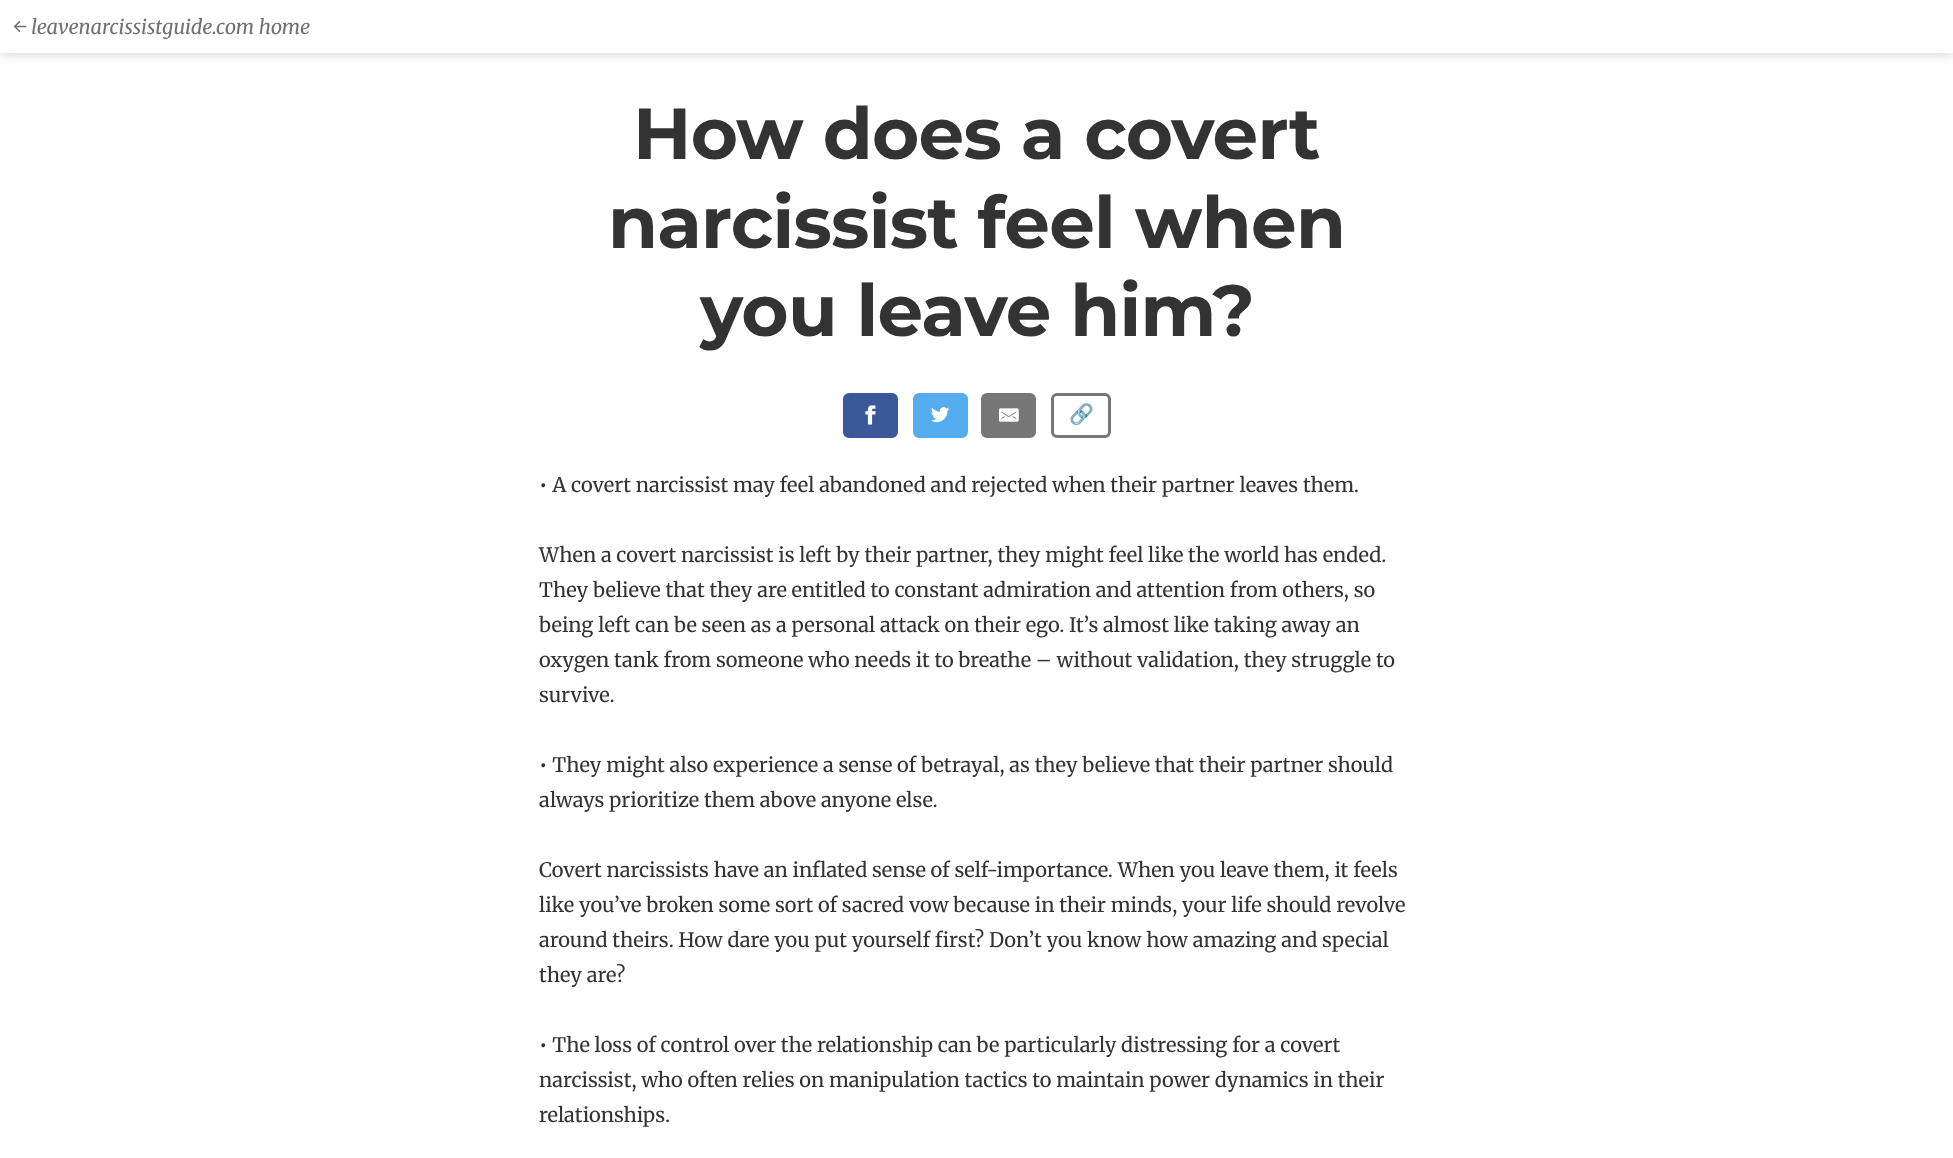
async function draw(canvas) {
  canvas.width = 1953
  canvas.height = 1158
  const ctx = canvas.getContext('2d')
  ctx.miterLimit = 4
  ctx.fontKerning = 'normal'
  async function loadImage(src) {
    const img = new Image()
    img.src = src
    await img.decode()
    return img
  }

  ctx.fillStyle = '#fff'
  ctx.fillRect(0, 0, 1953, 1158)
  ctx.save()
  ctx.beginPath()
  ctx.moveTo(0, 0)
  ctx.lineTo(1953, 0)
  ctx.lineTo(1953, 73)
  ctx.lineTo(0, 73)
  ctx.closePath()
  ctx.moveTo(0, 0)
  ctx.lineTo(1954, 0)
  ctx.lineTo(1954, 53)
  ctx.lineTo(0, 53)
  ctx.closePath()
  ctx.clip('evenodd')
  ctx.fillStyle = '#d3d3d3'
  ctx.filter = 'blur(6px)'
  ctx.beginPath()
  ctx.rect(0, 1, 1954, 53)
  ctx.fill()
  ctx.filter = 'none'
  ctx.restore()
  ctx.font = 'italic 20px Merriweather'
  ctx.fillStyle = '#707070'
  ctx.fillText('← leavenarcissistguide.com home', 13, 34)
  ctx.letterSpacing = '-0.75px'
  ctx.font = 'bold 72.25px Montserrat'
  ctx.fillStyle = '#333'
  ctx.fillText('How does a covert', 633, 159)
  ctx.fillText('narcissist feel when', 608, 248)
  ctx.fillText('you leave him?', 700, 336)
  ctx.fillStyle = '#3b5998'
  ctx.beginPath()
  ctx.roundRect(844.5, 394.5, 52, 42, 4.5)
  ctx.fill()
  ctx.strokeStyle = '#3b5998'
  ctx.lineWidth = 3
  ctx.stroke()
  ctx.drawImage(await loadImage('image0.png'), 865, 405, 11, 20)
  ctx.fillStyle = '#55acee'
  ctx.beginPath()
  ctx.roundRect(914.5, 394.5, 52, 42, 4.5)
  ctx.fill()
  ctx.strokeStyle = '#55acee'
  ctx.stroke()
  ctx.drawImage(await loadImage('image1.png'), 931, 407, 19, 16)
  ctx.fillStyle = '#777'
  ctx.beginPath()
  ctx.roundRect(982.5, 394.5, 52, 42, 4.5)
  ctx.fill()
  ctx.strokeStyle = '#777'
  ctx.stroke()
  ctx.drawImage(await loadImage('image2.png'), 999, 408, 20, 14)
  ctx.beginPath()
  ctx.roundRect(1052.5, 394.5, 57, 42, 4.5)
  ctx.stroke()
  ctx.letterSpacing = '0px'
  ctx.font = '20px Noto Color Emoji'
  ctx.fillText('🔗', 1069, 421)
  ctx.font = '20px Merriweather'
  ctx.fillStyle = '#333'
  ctx.fillText('• A covert narcissist may feel abandoned and rejected when their partner leaves them.', 539, 492)
  ctx.fillText('When a covert narcissist is left by their partner, they might feel like the world has ended.', 539, 562)
  ctx.fillText('They believe that they are entitled to constant admiration and attention from others, so', 539, 597)
  ctx.fillText('being left can be seen as a personal attack on their ego. It’s almost like taking away an', 539, 632)
  ctx.fillText('oxygen tank from someone who needs it to breathe – without validation, they struggle to', 539, 667)
  ctx.fillText('survive.', 539, 702)
  ctx.fillText('• They might also experience a sense of betrayal, as they believe that their partner should', 539, 772)
  ctx.fillText('always prioritize them above anyone else.', 539, 807)
  ctx.fillText('Covert narcissists have an inflated sense of self-importance. When you leave them, it feels', 539, 877)
  ctx.fillText('like you’ve broken some sort of sacred vow because in their minds, your life should revolve', 539, 912)
  ctx.fillText('around theirs. How dare you put yourself first? Don’t you know how amazing and special', 539, 947)
  ctx.fillText('they are?', 539, 982)
  ctx.fillText('• The loss of control over the relationship can be particularly distressing for a covert', 539, 1052)
  ctx.fillText('narcissist, who often relies on manipulation tactics to maintain power dynamics in their', 539, 1087)
  ctx.fillText('relationships.', 539, 1122)
}

draw(document.querySelector('canvas'))
